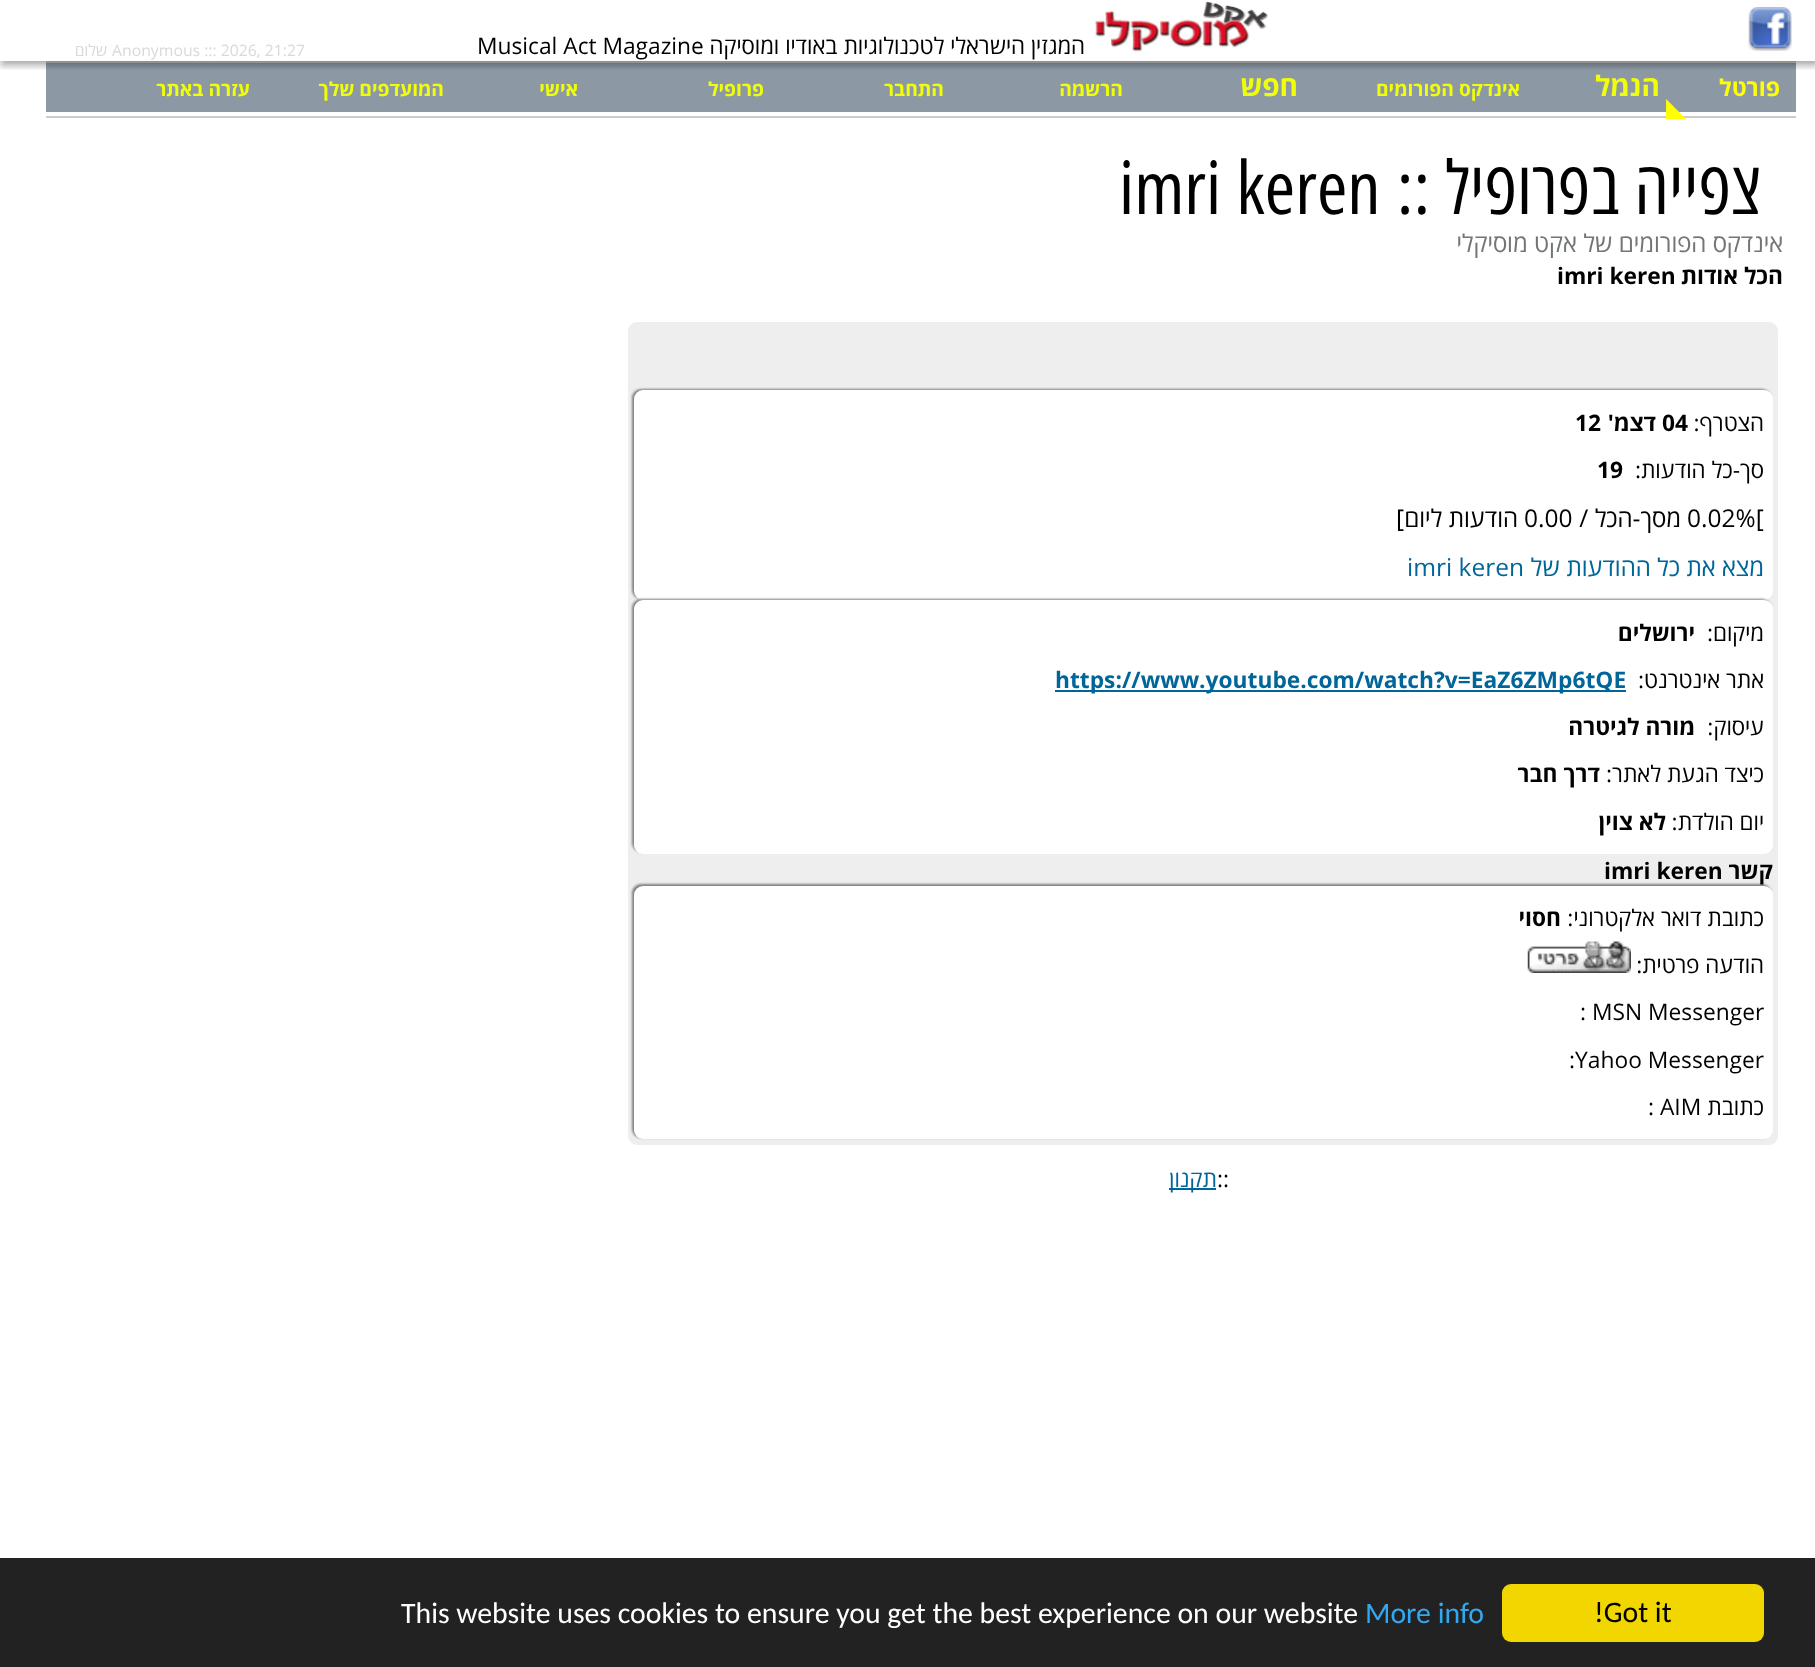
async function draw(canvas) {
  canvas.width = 1815
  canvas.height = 1667
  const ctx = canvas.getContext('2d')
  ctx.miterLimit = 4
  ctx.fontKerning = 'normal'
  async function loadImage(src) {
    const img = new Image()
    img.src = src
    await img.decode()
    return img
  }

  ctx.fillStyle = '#fff'
  ctx.fillRect(0, 0, 1815, 1667)
  ctx.fillStyle = '#ccc'
  ctx.fillRect(46, 61, 1750, 2)
  ctx.fillStyle = '#8c99a4'
  ctx.fillRect(46, 63, 1750, 49)
  ctx.save()
  ctx.beginPath()
  ctx.rect(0, 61, 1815, 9)
  ctx.clip()
  ctx.fillStyle = '#0000003b'
  ctx.filter = 'blur(2.5px)'
  ctx.beginPath()
  ctx.rect(0, 5, 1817, 62)
  ctx.fill()
  ctx.filter = 'none'
  ctx.restore()
  ctx.save()
  ctx.beginPath()
  ctx.rect(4, 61, 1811, 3)
  ctx.clip()
  ctx.fillStyle = '#00000030'
  ctx.filter = 'blur(2.5px)'
  ctx.beginPath()
  ctx.rect(5, 0, 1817, 61)
  ctx.fill()
  ctx.filter = 'none'
  ctx.restore()
  ctx.drawImage(await loadImage('image0.png'), 1748, 7, 44, 44)
  ctx.drawImage(await loadImage('image1.png'), 1095, 1, 173, 51)
  ctx.direction = 'rtl'
  ctx.font = '22.75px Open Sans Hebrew'
  ctx.fillStyle = '#000'
  ctx.fillText('המגזין הישראלי לטכנולוגיות באודיו ומוסיקה', 1085, 54)
  ctx.direction = 'ltr'
  ctx.fillText('Musical Act Magazine', 477, 54)
  ctx.font = '15.75px Open Sans Hebrew'
  ctx.fillStyle = '#d9d9d9'
  ctx.fillText('Anonymous ::: 2026, 21:27', 112, 56)
  ctx.direction = 'rtl'
  ctx.fillText('שלום', 107, 56)
  ctx.fillStyle = '#ccc'
  ctx.fillRect(46, 116, 1750, 2)
  ctx.font = 'bold 23px Open Sans Hebrew'
  ctx.fillStyle = '#ff0'
  ctx.fillText('פורטל', 1780, 96)
  ctx.direction = 'ltr'
  ctx.font = 'bold 24.5px DejaVu Sans'
  ctx.fillText('◣', 1666, 116)
  ctx.direction = 'rtl'
  ctx.font = 'bold 28px Open Sans Hebrew'
  ctx.fillStyle = '#f0ff08'
  ctx.fillText('הנמל', 1660, 96)
  ctx.font = 'bold 19.25px Open Sans Hebrew'
  ctx.fillText('אינדקס הפורומים', 1520, 96)
  ctx.font = 'bold 28px Open Sans Hebrew'
  ctx.fillText('חפש', 1298, 96)
  ctx.font = 'bold 19.25px Open Sans Hebrew'
  ctx.fillText('הרשמה', 1123, 96)
  ctx.fillText('התחבר', 944, 96)
  ctx.fillText('פרופיל', 764, 96)
  ctx.fillText('אישי', 578, 96)
  ctx.fillText('המועדפים שלך', 444, 96)
  ctx.fillText('עזרה באתר', 250, 96)
  ctx.font = '73.5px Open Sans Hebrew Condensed'
  ctx.fillStyle = '#000'
  ctx.fillText('צפייה בפרופיל ::', 1761, 214)
  ctx.direction = 'ltr'
  ctx.fillText('imri keren', 1119, 214)
  ctx.direction = 'rtl'
  ctx.font = '24.5px Open Sans Hebrew'
  ctx.fillStyle = '#737677'
  ctx.fillText('אינדקס הפורומים של אקט מוסיקלי', 1783, 252)
  ctx.font = 'bold 22.75px Open Sans Hebrew'
  ctx.fillStyle = '#000'
  ctx.fillText('הכל אודות', 1783, 284)
  ctx.direction = 'ltr'
  ctx.fillText('imri keren', 1557, 284)
  ctx.fillStyle = '#eee'
  ctx.beginPath()
  ctx.roundRect(628, 322, 1150, 823, 9)
  ctx.fill()
  ctx.fillStyle = '#808080'
  ctx.filter = 'blur(1px)'
  ctx.beginPath()
  ctx.roundRect(632, 389, 1139, 210, 9)
  ctx.fill()
  ctx.filter = 'none'
  ctx.fillStyle = '#fff'
  ctx.beginPath()
  ctx.roundRect(634, 390, 1139, 210, 9)
  ctx.fill()
  ctx.direction = 'rtl'
  ctx.font = '22.75px Open Sans Hebrew'
  ctx.fillStyle = '#000'
  ctx.fillText('הצטרף:', 1764, 431)
  ctx.direction = 'ltr'
  ctx.font = 'bold 22.75px Open Sans Hebrew'
  ctx.fillText('04', 1662, 431)
  ctx.direction = 'rtl'
  ctx.fillText('דצמ\'', 1656, 431)
  ctx.direction = 'ltr'
  ctx.fillText('12', 1575, 431)
  ctx.direction = 'rtl'
  ctx.font = '22.75px Open Sans Hebrew'
  ctx.fillText('סך-כל הודעות:', 1764, 478)
  ctx.direction = 'ltr'
  ctx.font = 'bold 22.75px Open Sans Hebrew'
  ctx.fillText('19', 1597, 478)
  ctx.font = '24.5px Open Sans Hebrew'
  ctx.fillText('0.02%[', 1687, 527)
  ctx.direction = 'rtl'
  ctx.fillText('מסך-הכל /', 1681, 527)
  ctx.direction = 'ltr'
  ctx.fillText('0.00', 1524, 527)
  ctx.direction = 'rtl'
  ctx.fillText('הודעות ליום]', 1518, 527)
  ctx.fillStyle = '#069'
  ctx.fillText('מצא את כל ההודעות של', 1764, 576)
  ctx.direction = 'ltr'
  ctx.fillText('imri keren', 1407, 576)
  ctx.fillStyle = '#808080'
  ctx.filter = 'blur(1px)'
  ctx.beginPath()
  ctx.roundRect(632, 599, 1139, 253, 9)
  ctx.fill()
  ctx.filter = 'none'
  ctx.fillStyle = '#fff'
  ctx.beginPath()
  ctx.roundRect(634, 600, 1139, 254, 9)
  ctx.fill()
  ctx.direction = 'rtl'
  ctx.font = '22.75px Open Sans Hebrew'
  ctx.fillStyle = '#000'
  ctx.fillText('מיקום:', 1764, 641)
  ctx.font = 'bold 22.75px Open Sans Hebrew'
  ctx.fillText('ירושלים', 1695, 641)
  ctx.font = '22.75px Open Sans Hebrew'
  ctx.fillText('אתר אינטרנט:', 1764, 688)
  ctx.fillStyle = '#069'
  ctx.fillRect(1055, 690, 571, 2)
  ctx.direction = 'ltr'
  ctx.font = 'bold 22.75px Open Sans Hebrew'
  ctx.fillText('https://www.youtube.com/watch?v=EaZ6ZMp6tQE', 1055, 688)
  ctx.direction = 'rtl'
  ctx.font = '22.75px Open Sans Hebrew'
  ctx.fillStyle = '#000'
  ctx.fillText('עיסוק:', 1764, 735)
  ctx.font = 'bold 22.75px Open Sans Hebrew'
  ctx.fillText('מורה לגיטרה', 1695, 735)
  ctx.font = '22.75px Open Sans Hebrew'
  ctx.fillText('כיצד הגעת לאתר:', 1764, 782)
  ctx.font = 'bold 22.75px Open Sans Hebrew'
  ctx.fillText('דרך חבר', 1600, 782)
  ctx.font = '22.75px Open Sans Hebrew'
  ctx.fillText('יום הולדת:', 1764, 830)
  ctx.font = 'bold 22.75px Open Sans Hebrew'
  ctx.fillText('לא צוין', 1666, 830)
  ctx.fillStyle = '#808080'
  ctx.filter = 'blur(1px)'
  ctx.beginPath()
  ctx.roundRect(632, 884, 1139, 254, 9)
  ctx.fill()
  ctx.filter = 'none'
  ctx.fillStyle = '#000'
  ctx.fillText('קשר', 1773, 879)
  ctx.direction = 'ltr'
  ctx.fillText('imri keren', 1604, 879)
  ctx.fillStyle = '#fff'
  ctx.beginPath()
  ctx.roundRect(634, 886, 1139, 253, 9)
  ctx.fill()
  ctx.direction = 'rtl'
  ctx.font = '22.75px Open Sans Hebrew'
  ctx.fillStyle = '#000'
  ctx.fillText('כתובת דואר אלקטרוני:', 1764, 926)
  ctx.font = 'bold 22.75px Open Sans Hebrew'
  ctx.fillText('חסוי', 1561, 926)
  ctx.font = '22.75px Open Sans Hebrew'
  ctx.fillText('הודעה פרטית:', 1764, 973)
  ctx.drawImage(await loadImage('image2.png'), 1527, 941, 104, 32)
  ctx.direction = 'ltr'
  ctx.fillText(': MSN Messenger', 1580, 1020)
  ctx.fillText(':Yahoo Messenger', 1569, 1068)
  ctx.direction = 'rtl'
  ctx.fillText('כתובת', 1764, 1115)
  ctx.direction = 'ltr'
  ctx.fillText(': AIM', 1648, 1115)
  ctx.fillText('::', 1217, 1187)
  ctx.fillStyle = '#069'
  ctx.fillRect(1169, 1188, 47, 2)
  ctx.direction = 'rtl'
  ctx.fillText('תקנון', 1217, 1187)
  ctx.fillStyle = '#222'
  ctx.fillRect(0, 1558, 1815, 109)
  ctx.fillStyle = '#f1d600'
  ctx.beginPath()
  ctx.roundRect(1502, 1584, 262, 58, 9)
  ctx.fill()
  ctx.direction = 'ltr'
  ctx.font = '29.75px Carlito'
  ctx.fillStyle = '#000'
  ctx.fillText('!Got it', 1594, 1622)
  ctx.fillStyle = '#31a8f0'
  ctx.fillText('More info', 1365, 1623)
  ctx.fillStyle = '#fff'
  ctx.fillText('This website uses cookies to ensure you get the best experience on our website', 401, 1623)
}

draw(document.querySelector('canvas'))
